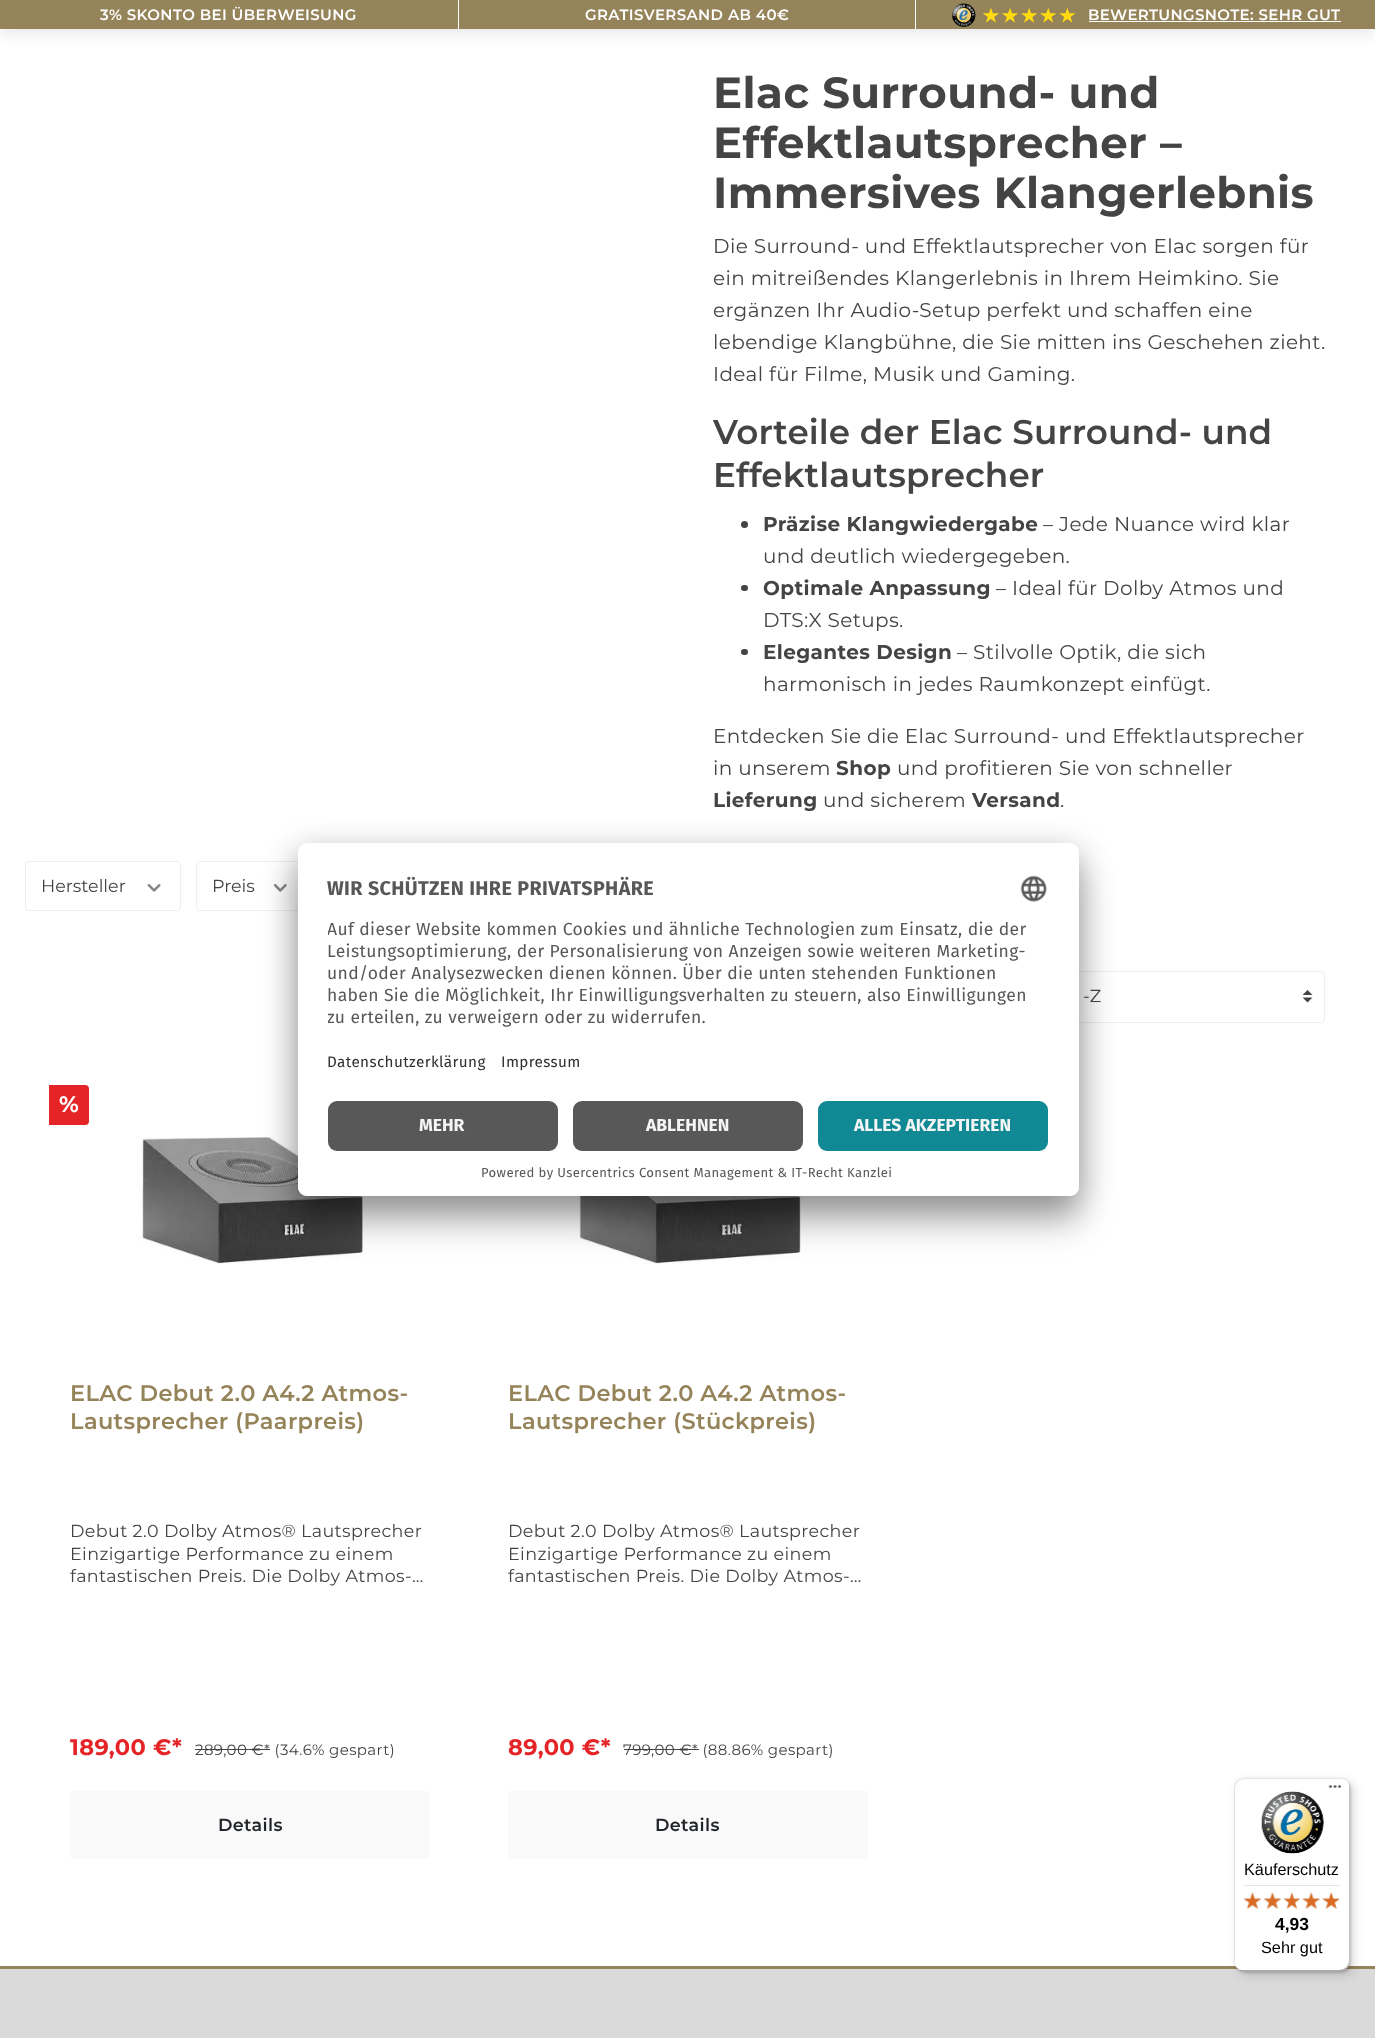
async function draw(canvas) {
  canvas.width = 1375
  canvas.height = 2038
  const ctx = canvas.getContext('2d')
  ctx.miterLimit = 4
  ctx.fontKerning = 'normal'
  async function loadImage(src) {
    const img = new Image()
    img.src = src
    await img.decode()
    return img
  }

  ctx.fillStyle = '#fff'
  ctx.fillRect(0, 0, 1375, 2038)
  ctx.fillStyle = '#00000017'
  ctx.filter = 'blur(7.5px)'
  ctx.beginPath()
  ctx.rect(0, 5, 1375, 29)
  ctx.fill()
  ctx.filter = 'none'
  ctx.fillStyle = '#958359'
  ctx.fillRect(0, 0, 1375, 29)
  ctx.fillStyle = '#fff'
  ctx.fillRect(458, 0, 1, 29)
  ctx.letterSpacing = '0.38px'
  ctx.font = '600 15px Montserrat'
  ctx.fillText('3% SKONTO BEI ÜBERWEISUNG', 100, 20)
  ctx.fillRect(915, 0, 1, 29)
  ctx.fillText('GRATISVERSAND AB 40€', 585, 20)
  ctx.drawImage(await loadImage('image0.png'), 951, 3, 125, 24)
  ctx.fillText('BEWERTUNGSNOTE: SEHR GUT', 1088, 20)
  ctx.fillRect(1089, 21, 252, 1)
  ctx.font = 'bold 43.5px Montserrat'
  ctx.fillStyle = '#444'
  ctx.fillText('Elac Surround- und', 713, 108)
  ctx.fillText('Effektlautsprecher –', 713, 158)
  ctx.fillText('Immersives Klangerlebnis', 713, 208)
  ctx.font = '20px Montserrat'
  ctx.fillText('Die Surround- und Effektlautsprecher von Elac sorgen für', 713, 253)
  ctx.fillText('ein mitreißendes Klangerlebnis in Ihrem Heimkino. Sie', 713, 285)
  ctx.fillText('ergänzen Ihr Audio-Setup perfekt und schaffen eine', 713, 317)
  ctx.fillText('lebendige Klangbühne, die Sie mitten ins Geschehen zieht.', 713, 349)
  ctx.fillText('Ideal für Filme, Musik und Gaming.', 713, 381)
  ctx.letterSpacing = '0.1px'
  ctx.font = '600 34.25px Montserrat'
  ctx.fillText('Vorteile der Elac Surround- und', 713, 444)
  ctx.fillText('Effektlautsprecher', 713, 487)
  ctx.beginPath()
  ctx.arc(744.5, 524.5, 3.5, 0, 2 * Math.PI)
  ctx.fill()
  ctx.letterSpacing = '0.38px'
  ctx.font = 'bold 20px Montserrat'
  ctx.fillText('Präzise Klangwiedergabe', 763, 531)
  ctx.font = '20px Montserrat'
  ctx.fillText('– Jede Nuance wird klar', 1043, 531)
  ctx.fillText('und deutlich wiedergegeben.', 763, 563)
  ctx.beginPath()
  ctx.roundRect(741, 585, 7, 6, 3)
  ctx.fill()
  ctx.font = 'bold 20px Montserrat'
  ctx.fillText('Optimale Anpassung', 763, 595)
  ctx.font = '20px Montserrat'
  ctx.fillText('– Ideal für Dolby Atmos und', 996, 595)
  ctx.fillText('DTS:X Setups.', 763, 627)
  ctx.beginPath()
  ctx.roundRect(741, 649, 7, 6, 3)
  ctx.fill()
  ctx.font = 'bold 20px Montserrat'
  ctx.fillText('Elegantes Design', 763, 659)
  ctx.font = '20px Montserrat'
  ctx.fillText('– Stilvolle Optik, die sich', 957, 659)
  ctx.fillText('harmonisch in jedes Raumkonzept einfügt.', 763, 691)
  ctx.fillText('Entdecken Sie die Elac Surround- und Effektlautsprecher', 713, 743)
  ctx.fillText('in unserem', 713, 775)
  ctx.font = 'bold 20px Montserrat'
  ctx.fillText('Shop', 836, 775)
  ctx.font = '20px Montserrat'
  ctx.fillText('und profitieren Sie von schneller', 897, 775)
  ctx.font = 'bold 20px Montserrat'
  ctx.fillText('Lieferung', 713, 807)
  ctx.font = '20px Montserrat'
  ctx.fillText('und sicherem', 823, 807)
  ctx.font = 'bold 20px Montserrat'
  ctx.fillText('Versand', 972, 807)
  ctx.font = '20px Montserrat'
  ctx.fillText('.', 1060, 807)
  ctx.beginPath()
  ctx.roundRect(25.5, 861.5, 155, 49, 3.5)
  ctx.strokeStyle = '#eee'
  ctx.stroke()
  ctx.letterSpacing = '0px'
  ctx.font = '17.5px Montserrat'
  ctx.fillText('Hersteller', 41, 892)
  ctx.drawImage(await loadImage('image1.png'), 147, 884, 14, 8)
  ctx.beginPath()
  ctx.roundRect(196.5, 861.5, 109, 49, 3.5)
  ctx.stroke()
  ctx.fillText('Preis', 212, 892)
  ctx.drawImage(await loadImage('image2.png'), 273, 884, 14, 8)
  ctx.drawImage(await loadImage('image3.png'), 1303, 990, 10, 13)
  ctx.beginPath()
  ctx.roundRect(1000.5, 971.5, 324, 51, 3.5)
  ctx.stroke()
  ctx.fillText('-Z', 1083, 1002)
  ctx.fillStyle = '#e52427'
  ctx.beginPath()
  ctx.roundRect(49, 1085, 40, 40, [0, 4, 4, 0])
  ctx.fill()
  ctx.font = 'bold 22.5px Montserrat'
  ctx.fillStyle = '#fff'
  ctx.fillText('%', 59, 1112)
  ctx.drawImage(await loadImage('image4.png'), 138, 1137, 225, 127)
  ctx.letterSpacing = '0.38px'
  ctx.font = '600 22.5px Montserrat'
  ctx.fillStyle = '#958359'
  ctx.fillText('ELAC Debut 2.0 A4.2 Atmos-', 70, 1401)
  ctx.fillText('Lautsprecher (Paarpreis)', 70, 1429)
  ctx.font = '17.5px Montserrat'
  ctx.fillStyle = '#444'
  ctx.fillText('Debut 2.0 Dolby Atmos® Lautsprecher', 70, 1537)
  ctx.fillText('Einzigartige Performance zu einem', 70, 1560)
  ctx.fillText('fantastischen Preis. Die Dolby Atmos-…', 70, 1582)
  ctx.font = 'bold 22.5px Montserrat'
  ctx.fillStyle = '#e52427'
  ctx.fillText('189,00 €*', 70, 1755)
  ctx.font = '15px Montserrat'
  ctx.fillStyle = '#444'
  ctx.fillText('289,00 €* (34.6% gespart)', 195, 1755)
  ctx.fillRect(195, 1749, 75, 1)
  ctx.fillStyle = '#f9f9f9'
  ctx.beginPath()
  ctx.roundRect(70, 1791, 360, 68, 4)
  ctx.fill()
  ctx.font = '600 17.5px Montserrat'
  ctx.fillStyle = '#212529'
  ctx.fillText('Details', 218, 1831)
  ctx.drawImage(await loadImage('image5.png'), 575, 1196, 226, 68)
  ctx.font = '600 22.5px Montserrat'
  ctx.fillStyle = '#958359'
  ctx.fillText('ELAC Debut 2.0 A4.2 Atmos-', 508, 1401)
  ctx.fillText('Lautsprecher (Stückpreis)', 508, 1429)
  ctx.font = '17.5px Montserrat'
  ctx.fillStyle = '#444'
  ctx.fillText('Debut 2.0 Dolby Atmos® Lautsprecher', 508, 1537)
  ctx.fillText('Einzigartige Performance zu einem', 508, 1560)
  ctx.fillText('fantastischen Preis. Die Dolby Atmos-…', 508, 1582)
  ctx.font = 'bold 22.5px Montserrat'
  ctx.fillStyle = '#e52427'
  ctx.fillText('89,00 €*', 508, 1755)
  ctx.font = '15px Montserrat'
  ctx.fillStyle = '#444'
  ctx.fillText('799,00 €* (88.86% gespart)', 623, 1755)
  ctx.fillRect(624, 1749, 75, 1)
  ctx.fillStyle = '#f9f9f9'
  ctx.beginPath()
  ctx.roundRect(508, 1791, 360, 68, 4)
  ctx.fill()
  ctx.font = '600 17.5px Montserrat'
  ctx.fillStyle = '#212529'
  ctx.fillText('Details', 655, 1831)
  ctx.fillStyle = '#0000004d'
  ctx.filter = 'blur(17.5px)'
  ctx.beginPath()
  ctx.roundRect(298, 868, 781, 353, 9)
  ctx.fill()
  ctx.filter = 'none'
  ctx.fillStyle = '#00000038'
  ctx.filter = 'blur(16px)'
  ctx.beginPath()
  ctx.roundRect(298, 849, 781, 354, 9)
  ctx.fill()
  ctx.filter = 'none'
  ctx.fillStyle = '#fff'
  ctx.beginPath()
  ctx.roundRect(298, 843, 781, 353, 9)
  ctx.fill()
  ctx.font = 'bold 19.75px Fira Sans'
  ctx.fillStyle = '#595857'
  ctx.fillText('WIR SCHÜTZEN IHRE PRIVATSPHÄRE', 327, 895)
  ctx.drawImage(await loadImage('image6.png'), 1020, 875, 27, 27)
  ctx.save()
  ctx.beginPath()
  ctx.rect(328, 914, 721, 120)
  ctx.clip()
  ctx.font = '17.5px Fira Sans'
  ctx.fillText('Auf dieser Website kommen Cookies und ähnliche Technologien zum Einsatz, die der', 327, 935)
  ctx.restore()
  ctx.font = '17.5px Fira Sans'
  ctx.fillText('Leistungsoptimierung, der Personalisierung von Anzeigen sowie weiteren Marketing-', 327, 957)
  ctx.fillText('und/oder Analysezwecken dienen können. Über die unten stehenden Funktionen', 327, 979)
  ctx.fillText('haben Sie die Möglichkeit, Ihr Einwilligungsverhalten zu steuern, also Einwilligungen', 327, 1001)
  ctx.save()
  ctx.beginPath()
  ctx.rect(328, 914, 721, 120)
  ctx.clip()
  ctx.fillText('zu erteilen, zu verweigern oder zu widerrufen.', 327, 1023)
  ctx.restore()
  ctx.font = '15.25px Fira Sans'
  ctx.fillStyle = '#303030'
  ctx.fillText('Datenschutzerklärung', 327, 1067)
  ctx.fillText('Impressum', 501, 1067)
  ctx.fillStyle = '#fff'
  ctx.beginPath()
  ctx.roundRect(298, 1091, 781, 105, [0, 0, 9, 9])
  ctx.fill()
  ctx.fillStyle = '#585858'
  ctx.beginPath()
  ctx.roundRect(328, 1101, 230, 50, 9)
  ctx.fill()
  ctx.letterSpacing = '0px'
  ctx.font = 'bold 17.5px Fira Sans'
  ctx.fillStyle = '#f5f5f5'
  ctx.fillText('MEHR', 419, 1131)
  ctx.fillStyle = '#585858'
  ctx.beginPath()
  ctx.roundRect(573, 1101, 230, 50, 9)
  ctx.fill()
  ctx.fillStyle = '#f5f5f5'
  ctx.fillText('ABLEHNEN', 646, 1131)
  ctx.fillStyle = '#118994'
  ctx.beginPath()
  ctx.roundRect(818, 1101, 230, 50, 9)
  ctx.fill()
  ctx.fillStyle = '#f5f5f5'
  ctx.fillText('ALLES AKZEPTIEREN', 854, 1131)
  ctx.letterSpacing = '0.38px'
  ctx.font = '13.1px Fira Sans'
  ctx.fillStyle = '#595857'
  ctx.fillText('Powered by Usercentrics Consent Management & IT-Recht Kanzlei', 481, 1177)
  ctx.fillStyle = '#958359'
  ctx.fillRect(0, 1966, 1375, 3)
  ctx.fillStyle = '#dadada'
  ctx.fillRect(0, 1969, 1375, 69)
  ctx.fillStyle = '#00000026'
  ctx.filter = 'blur(5px)'
  ctx.beginPath()
  ctx.roundRect(1238, 1781, 116, 194, 10)
  ctx.fill()
  ctx.filter = 'none'
  ctx.filter = 'blur(1px)'
  ctx.beginPath()
  ctx.roundRect(1235, 1779, 116, 194, 10)
  ctx.fill()
  ctx.filter = 'none'
  ctx.fillStyle = '#fff'
  ctx.beginPath()
  ctx.roundRect(1234, 1778, 116, 193, 10)
  ctx.fill()
  ctx.fillStyle = '#e5e5e5'
  ctx.beginPath()
  ctx.moveTo(1245, 1779)
  ctx.lineTo(1341, 1779)
  ctx.bezierCurveTo(1343, 1779, 1345, 1779, 1346, 1780)
  ctx.bezierCurveTo(1345, 1779, 1342, 1778, 1340, 1778)
  ctx.lineTo(1244, 1778)
  ctx.bezierCurveTo(1238, 1778, 1234, 1782, 1234, 1788)
  ctx.lineTo(1234, 1961)
  ctx.bezierCurveTo(1234, 1963, 1235, 1966, 1236, 1967)
  ctx.bezierCurveTo(1235, 1966, 1235, 1964, 1235, 1962)
  ctx.lineTo(1235, 1789)
  ctx.bezierCurveTo(1235, 1783, 1239, 1779, 1245, 1779)
  ctx.closePath()
  ctx.fill()
  ctx.fillStyle = '#00000033'
  ctx.beginPath()
  ctx.moveTo(1238, 1969)
  ctx.bezierCurveTo(1240, 1970, 1242, 1971, 1244, 1971)
  ctx.lineTo(1340, 1971)
  ctx.bezierCurveTo(1346, 1971, 1350, 1967, 1350, 1961)
  ctx.lineTo(1350, 1788)
  ctx.bezierCurveTo(1350, 1786, 1349, 1784, 1348, 1782)
  ctx.bezierCurveTo(1349, 1783, 1349, 1785, 1349, 1786)
  ctx.lineTo(1349, 1960)
  ctx.bezierCurveTo(1349, 1966, 1344, 1970, 1339, 1970)
  ctx.lineTo(1242, 1970)
  ctx.closePath()
  ctx.fill()
  ctx.fillStyle = '#32323233'
  ctx.beginPath()
  ctx.moveTo(1238, 1969)
  ctx.bezierCurveTo(1239, 1970, 1242, 1971, 1244, 1971)
  ctx.lineTo(1340, 1971)
  ctx.bezierCurveTo(1346, 1971, 1350, 1967, 1350, 1961)
  ctx.lineTo(1350, 1788)
  ctx.bezierCurveTo(1350, 1786, 1349, 1783, 1348, 1782)
  ctx.bezierCurveTo(1349, 1783, 1349, 1785, 1349, 1787)
  ctx.lineTo(1349, 1960)
  ctx.bezierCurveTo(1349, 1966, 1345, 1970, 1339, 1970)
  ctx.lineTo(1243, 1970)
  ctx.bezierCurveTo(1241, 1970, 1239, 1970, 1238, 1969)
  ctx.closePath()
  ctx.fill()
  ctx.fillStyle = '#ffffff4d'
  ctx.beginPath()
  ctx.moveTo(1339, 1971)
  ctx.lineTo(1340, 1971)
  ctx.bezierCurveTo(1346, 1971, 1350, 1967, 1350, 1961)
  ctx.lineTo(1350, 1788)
  ctx.bezierCurveTo(1350, 1786, 1349, 1783, 1348, 1782)
  ctx.bezierCurveTo(1349, 1783, 1349, 1785, 1349, 1787)
  ctx.lineTo(1349, 1961)
  ctx.bezierCurveTo(1349, 1966, 1345, 1971, 1339, 1971)
  ctx.closePath()
  ctx.fill()
  ctx.drawImage(await loadImage('image7.png'), 1328, 1785, 14, 3)
  ctx.drawImage(await loadImage('image8.png'), 1261, 1791, 63, 63)
  ctx.letterSpacing = '0px'
  ctx.font = '16.25px Liberation Sans'
  ctx.fillStyle = '#000'
  ctx.fillText('Käuferschutz', 1244, 1875)
  ctx.fillStyle = '#e5e5e5'
  ctx.fillRect(1244, 1885, 96, 1)
  ctx.drawImage(await loadImage('image14.png'), 1244, 1893, 17, 16)
  ctx.drawImage(await loadImage('image9.png'), 1243, 1892, 18, 17)
  ctx.drawImage(await loadImage('image15.png'), 1264, 1893, 17, 16)
  ctx.drawImage(await loadImage('image10.png'), 1263, 1892, 19, 17)
  ctx.drawImage(await loadImage('image16.png'), 1284, 1893, 16, 16)
  ctx.drawImage(await loadImage('image11.png'), 1283, 1892, 17, 17)
  ctx.drawImage(await loadImage('image17.png'), 1302, 1892, 18, 17)
  ctx.drawImage(await loadImage('image12.png'), 1302, 1892, 18, 17)
  ctx.drawImage(await loadImage('image18.png'), 1322, 1893, 18, 16)
  ctx.drawImage(await loadImage('image13.png'), 1322, 1892, 17, 17)
  ctx.font = 'bold 17.5px Liberation Sans'
  ctx.fillStyle = '#000'
  ctx.fillText('4,93', 1275, 1930)
  ctx.font = '16.25px Liberation Sans'
  ctx.fillText('Sehr gut', 1261, 1953)
}

draw(document.querySelector('canvas'))
